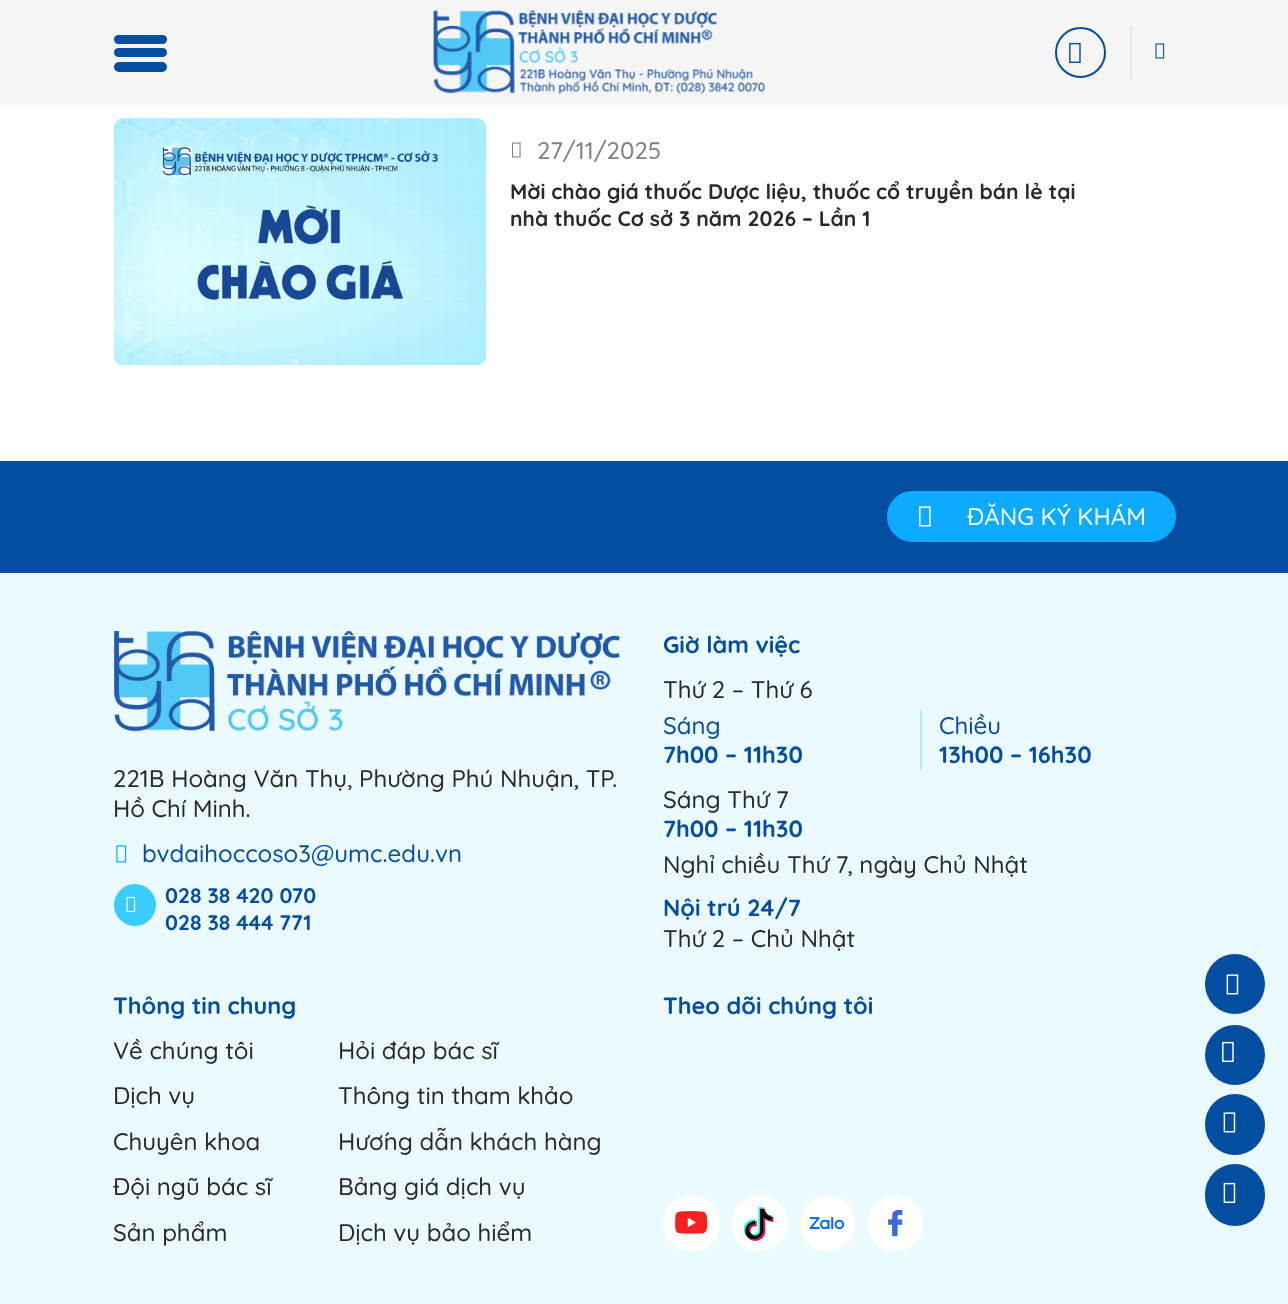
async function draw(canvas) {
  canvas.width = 1288
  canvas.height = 1304
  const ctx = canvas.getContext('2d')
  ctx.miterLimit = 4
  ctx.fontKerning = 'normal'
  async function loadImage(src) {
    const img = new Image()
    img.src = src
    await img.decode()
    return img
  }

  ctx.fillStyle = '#fff'
  ctx.fillRect(0, 0, 1288, 1304)
  ctx.fillStyle = '#f5f5f5'
  ctx.fillRect(0, 0, 1288, 105)
  ctx.fillStyle = '#034ea1'
  ctx.beginPath()
  ctx.roundRect(114, 35, 53, 9, 4.5)
  ctx.fill()
  ctx.beginPath()
  ctx.roundRect(114, 48, 53, 9, 4.5)
  ctx.fill()
  ctx.beginPath()
  ctx.roundRect(114, 62, 53, 10, 5)
  ctx.fill()
  ctx.drawImage(await loadImage('image0.png'), 433, 10, 332, 85)
  ctx.beginPath()
  ctx.arc(1080.5, 52.5, 24.5, 0, 2 * Math.PI)
  ctx.strokeStyle = '#034ea1'
  ctx.lineWidth = 2
  ctx.stroke()
  ctx.drawImage(await loadImage('image1.png'), 1069, 42, 12, 21)
  ctx.fillStyle = '#e7e7e7'
  ctx.fillRect(1130, 27, 2, 51)
  ctx.drawImage(await loadImage('image2.png'), 1155, 43, 10, 16)
  ctx.drawImage(await loadImage('image3.png'), 114, 118, 372, 248)
  ctx.drawImage(await loadImage('image4.png'), 512, 142, 9, 16)
  ctx.font = '500 24px Quicksand'
  ctx.fillStyle = '#818181'
  ctx.fillText('27/11/2025', 537, 159)
  ctx.font = 'bold 21.1px Quicksand'
  ctx.fillStyle = '#292929'
  ctx.fillText('Mời chào giá thuốc Dược liệu, thuốc cổ truyền bán lẻ tại', 510, 199)
  ctx.fillText('nhà thuốc Cơ sở 3 năm 2026 – Lần 1', 510, 226)
  ctx.fillStyle = '#034ea1'
  ctx.fillRect(0, 461, 1288, 112)
  ctx.fillStyle = '#0cabff'
  ctx.beginPath()
  ctx.roundRect(888, 492, 287, 49, 24.5)
  ctx.fill()
  ctx.strokeStyle = '#0cabff'
  ctx.stroke()
  ctx.drawImage(await loadImage('image5.png'), 919, 506, 12, 21)
  ctx.font = '500 24px Quicksand'
  ctx.fillStyle = '#fff'
  ctx.fillText('ĐĂNG KÝ KHÁM', 967, 525)
  ctx.fillStyle = '#ebfaff'
  ctx.fillRect(0, 573, 1288, 731)
  ctx.drawImage(await loadImage('image6.png'), 114, 631, 506, 101)
  ctx.fillStyle = '#292929'
  ctx.fillText('221B Hoàng Văn Thụ, Phường Phú Nhuận, TP.', 113, 787)
  ctx.fillText('Hồ Chí Minh.', 113, 817)
  ctx.drawImage(await loadImage('image7.png'), 116, 845, 11, 18)
  ctx.fillStyle = '#034ea1'
  ctx.fillText('bvdaihoccoso3@umc.edu.vn', 142, 862)
  ctx.fillStyle = '#3acbff'
  ctx.beginPath()
  ctx.arc(135, 905, 21, 0, 2 * Math.PI)
  ctx.fill()
  ctx.drawImage(await loadImage('image8.png'), 126, 896, 10, 16)
  ctx.font = 'bold 21.1px Quicksand'
  ctx.fillStyle = '#034ea1'
  ctx.fillText('028 38 420 070', 165, 903)
  ctx.fillText('028 38 444 771', 165, 930)
  ctx.font = 'bold 23.5px Quicksand'
  ctx.fillText('Giờ làm việc', 663, 653)
  ctx.font = '500 24px Quicksand'
  ctx.fillStyle = '#292929'
  ctx.fillText('Thứ 2 – Thứ 6', 663, 698)
  ctx.fillStyle = '#034ea1'
  ctx.fillText('Sáng', 663, 734)
  ctx.font = 'bold 23.5px Quicksand'
  ctx.fillText('7h00 – 11h30', 663, 763)
  ctx.fillStyle = '#afeaff'
  ctx.fillRect(920, 710, 2, 60)
  ctx.font = '500 24px Quicksand'
  ctx.fillStyle = '#034ea1'
  ctx.fillText('Chiều', 939, 734)
  ctx.font = 'bold 23.5px Quicksand'
  ctx.fillText('13h00 – 16h30', 939, 763)
  ctx.font = '500 24px Quicksand'
  ctx.fillStyle = '#292929'
  ctx.fillText('Sáng Thứ 7', 663, 808)
  ctx.font = 'bold 23.5px Quicksand'
  ctx.fillStyle = '#034ea1'
  ctx.fillText('7h00 – 11h30', 663, 837)
  ctx.font = '500 24px Quicksand'
  ctx.fillStyle = '#292929'
  ctx.fillText('Nghỉ chiều Thứ 7, ngày Chủ Nhật', 663, 873)
  ctx.font = 'bold 23.5px Quicksand'
  ctx.fillStyle = '#034ea1'
  ctx.fillText('Nội trú 24/7', 663, 916)
  ctx.font = '500 24px Quicksand'
  ctx.fillStyle = '#292929'
  ctx.fillText('Thứ 2 – Chủ Nhật', 663, 947)
  ctx.font = 'bold 23.5px Quicksand'
  ctx.fillStyle = '#034ea1'
  ctx.fillText('Thông tin chung', 113, 1014)
  ctx.font = '500 24px Quicksand'
  ctx.fillStyle = '#292929'
  ctx.fillText('Về chúng tôi', 113, 1059)
  ctx.fillText('Dịch vụ', 113, 1104)
  ctx.fillText('Chuyên khoa', 113, 1150)
  ctx.fillText('Đội ngũ bác sĩ', 113, 1195)
  ctx.fillText('Sản phẩm', 113, 1241)
  ctx.fillText('Hỏi đáp bác sĩ', 338, 1059)
  ctx.fillText('Thông tin tham khảo', 338, 1104)
  ctx.fillText('Hướng dẫn khách hàng', 338, 1150)
  ctx.fillText('Bảng giá dịch vụ', 338, 1195)
  ctx.fillText('Dịch vụ bảo hiểm', 338, 1241)
  ctx.font = 'bold 23.5px Quicksand'
  ctx.fillStyle = '#034ea1'
  ctx.fillText('Theo dõi chúng tôi', 663, 1014)
  ctx.fillStyle = '#fff'
  ctx.beginPath()
  ctx.roundRect(663, 1196, 57, 55, 27.5)
  ctx.fill()
  ctx.drawImage(await loadImage('image9.png'), 674, 1211, 34, 23)
  ctx.beginPath()
  ctx.roundRect(731, 1196, 57, 55, 27.5)
  ctx.fill()
  ctx.drawImage(await loadImage('image10.png'), 744, 1207, 30, 34)
  ctx.beginPath()
  ctx.arc(827.5, 1223.5, 27.5, 0, 2 * Math.PI)
  ctx.fill()
  ctx.drawImage(await loadImage('image11.png'), 809, 1217, 36, 13)
  ctx.beginPath()
  ctx.roundRect(867, 1196, 56, 55, 27.5)
  ctx.fill()
  ctx.drawImage(await loadImage('image12.png'), 888, 1210, 15, 27)
  ctx.fillStyle = '#034ea1'
  ctx.beginPath()
  ctx.arc(1235, 984, 30, 0, 2 * Math.PI)
  ctx.fill()
  ctx.drawImage(await loadImage('image13.png'), 1226, 974, 13, 21)
  ctx.beginPath()
  ctx.arc(1235, 1055, 30, 0, 2 * Math.PI)
  ctx.fill()
  ctx.drawImage(await loadImage('image14.png'), 1222, 1041, 12, 21)
  ctx.beginPath()
  ctx.roundRect(1205, 1094, 60, 61, 30)
  ctx.fill()
  ctx.drawImage(await loadImage('image13.png'), 1223, 1112, 13, 21)
  ctx.beginPath()
  ctx.roundRect(1205, 1164, 60, 62, 30)
  ctx.fill()
  ctx.drawImage(await loadImage('image15.png'), 1223, 1182, 13, 21)
}

draw(document.querySelector('canvas'))
